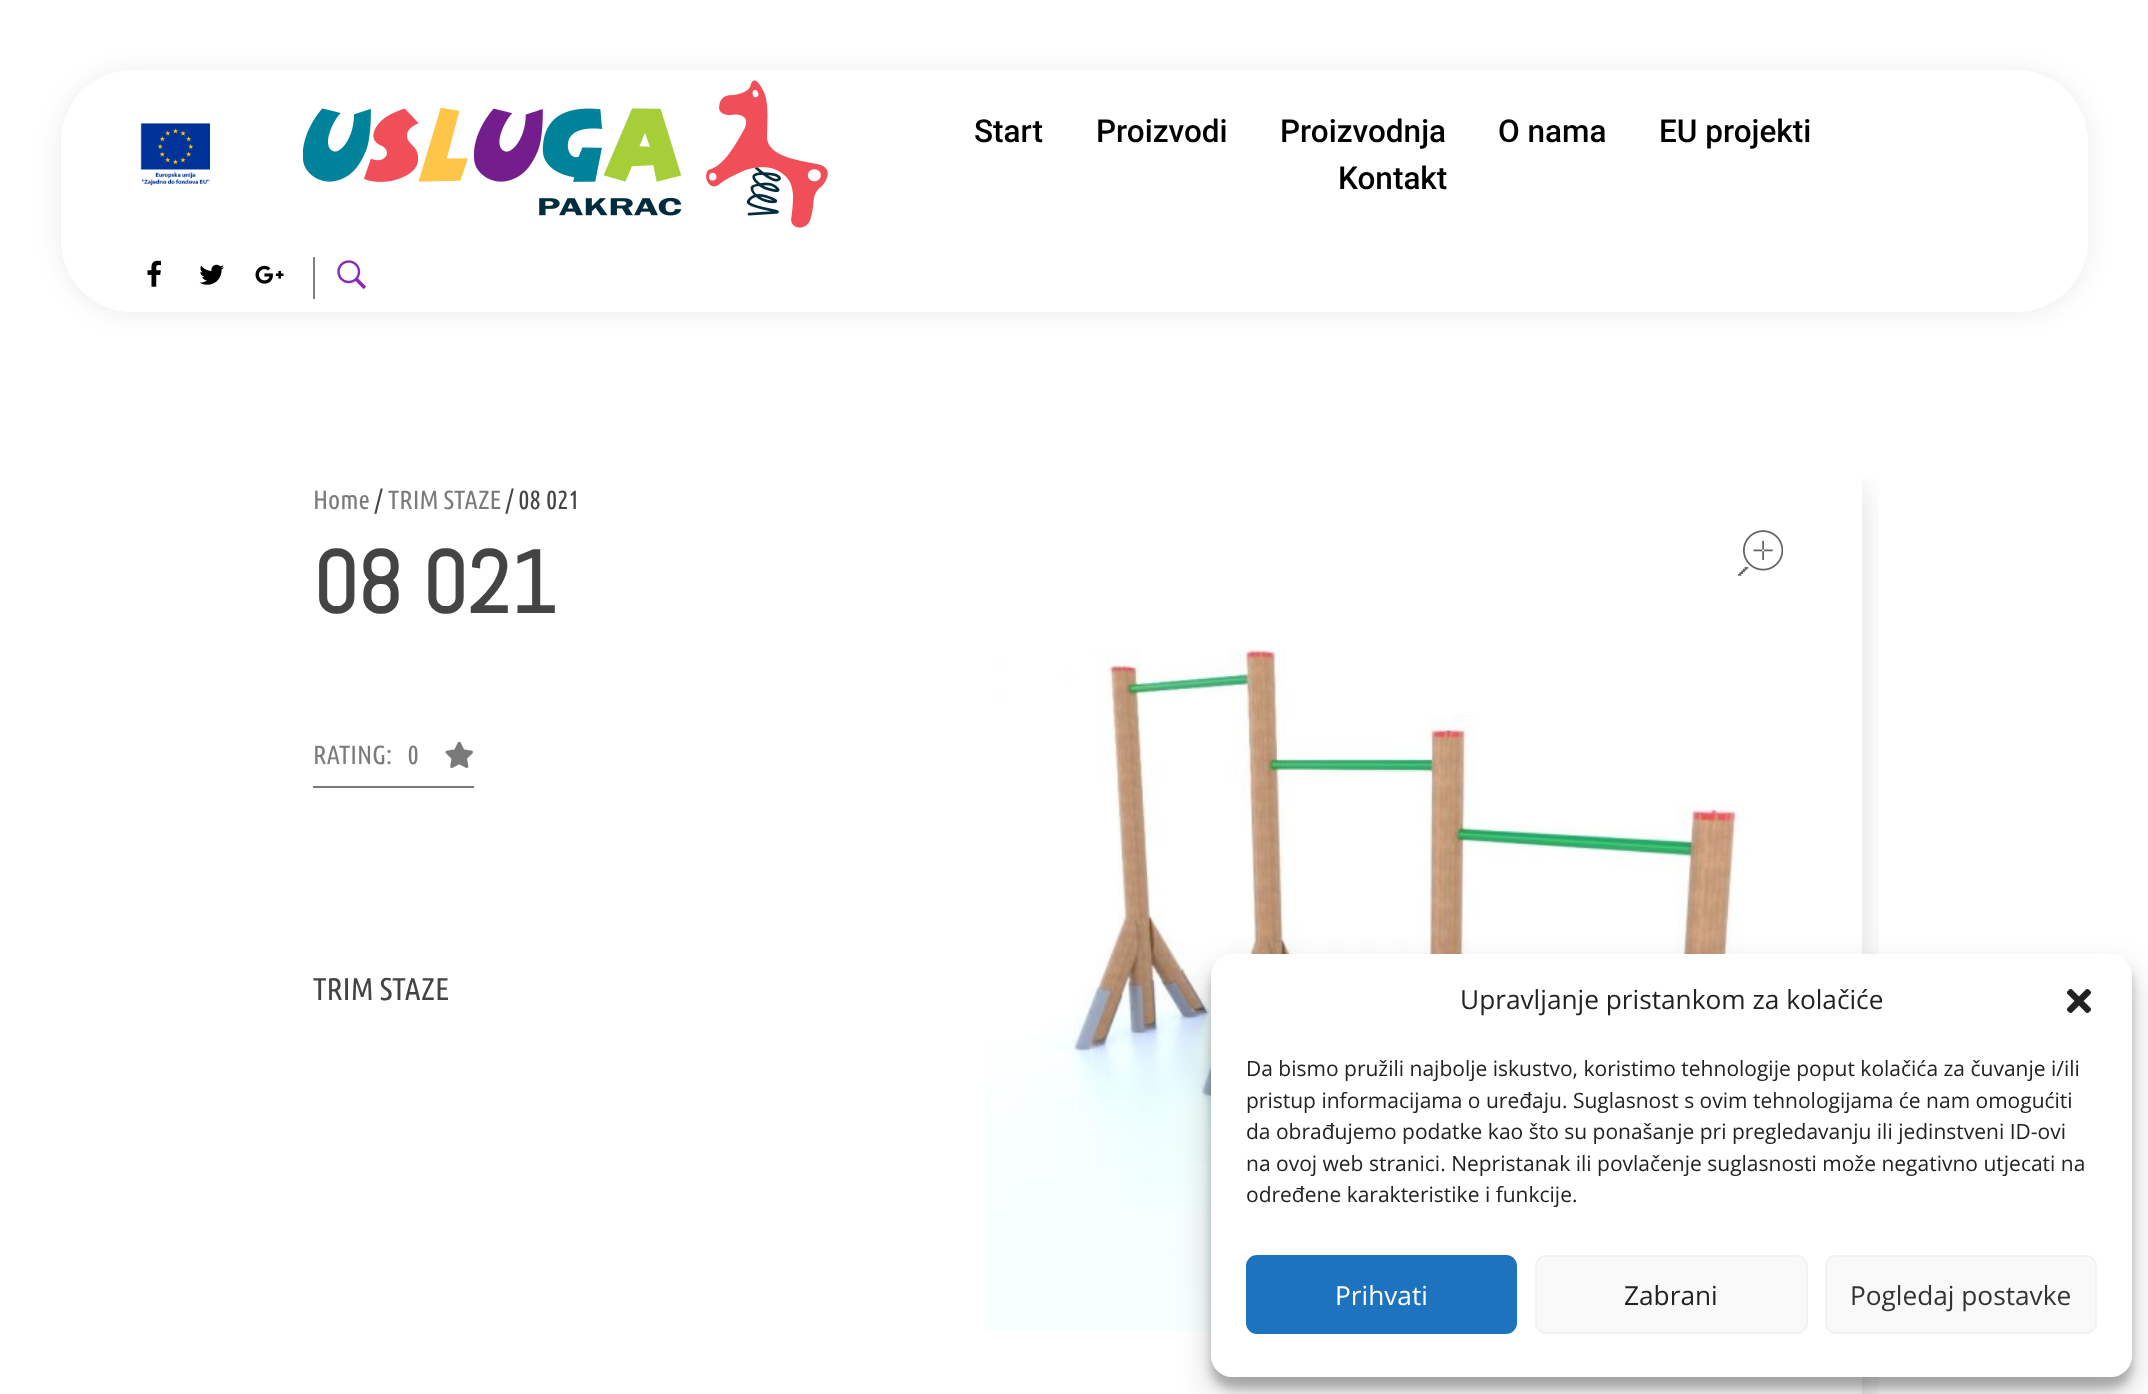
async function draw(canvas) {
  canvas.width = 2148
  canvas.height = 1394
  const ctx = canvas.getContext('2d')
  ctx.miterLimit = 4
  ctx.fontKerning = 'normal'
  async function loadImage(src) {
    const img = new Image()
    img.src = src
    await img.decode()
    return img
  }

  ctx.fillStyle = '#fff'
  ctx.fillRect(0, 0, 2148, 1394)
  ctx.save()
  ctx.beginPath()
  ctx.moveTo(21, 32)
  ctx.lineTo(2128, 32)
  ctx.lineTo(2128, 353)
  ctx.lineTo(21, 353)
  ctx.closePath()
  ctx.moveTo(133, 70)
  ctx.lineTo(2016, 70)
  ctx.bezierCurveTo(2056, 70, 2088, 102, 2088, 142)
  ctx.lineTo(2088, 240)
  ctx.bezierCurveTo(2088, 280, 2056, 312, 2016, 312)
  ctx.lineTo(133, 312)
  ctx.bezierCurveTo(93, 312, 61, 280, 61, 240)
  ctx.lineTo(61, 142)
  ctx.bezierCurveTo(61, 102, 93, 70, 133, 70)
  ctx.closePath()
  ctx.clip('evenodd')
  ctx.fillStyle = '#00000014'
  ctx.filter = 'blur(13px)'
  ctx.beginPath()
  ctx.roundRect(61, 72, 2027, 241, 72)
  ctx.fill()
  ctx.filter = 'none'
  ctx.restore()
  ctx.fillStyle = '#ffffffcc'
  ctx.beginPath()
  ctx.roundRect(61, 70, 2027, 242, 72)
  ctx.fill()
  ctx.drawImage(await loadImage('image0.png'), 140, 123, 70, 63)
  ctx.drawImage(await loadImage('image1.png'), 303, 80, 525, 148)
  ctx.font = '500 31.5px Roboto'
  ctx.fillStyle = '#010001'
  ctx.fillText('Start', 974, 142)
  ctx.fillText('Proizvodi', 1096, 142)
  ctx.fillText('Proizvodnja', 1280, 142)
  ctx.fillText('O nama', 1498, 142)
  ctx.fillText('EU projekti', 1659, 142)
  ctx.fillText('Kontakt', 1338, 189)
  ctx.fillStyle = '#818080'
  ctx.fillRect(313, 257, 2, 42)
  ctx.drawImage(await loadImage('image2.png'), 147, 260, 14, 27)
  ctx.drawImage(await loadImage('image3.png'), 199, 264, 25, 21)
  ctx.drawImage(await loadImage('image4.png'), 255, 265, 29, 19)
  ctx.drawImage(await loadImage('image5.png'), 337, 260, 30, 30)
  ctx.font = '26.25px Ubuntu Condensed'
  ctx.fillStyle = '#7a7a7a'
  ctx.fillText('Home', 313, 509)
  ctx.fillStyle = '#444'
  ctx.fillText('/', 375, 509)
  ctx.fillStyle = '#7a7a7a'
  ctx.fillText('TRIM STAZE', 388, 509)
  ctx.fillStyle = '#444'
  ctx.fillText('/ 08 021', 506, 509)
  ctx.font = 'bold 87.5px Abel'
  ctx.fillText('08 021', 313, 613)
  ctx.fillStyle = '#7a7a7a'
  ctx.fillRect(313, 786, 161, 2)
  ctx.font = '26.25px Ubuntu Condensed'
  ctx.fillText('RATING:   0', 313, 764)
  ctx.drawImage(await loadImage('image6.png'), 445, 741, 28, 27)
  ctx.font = '31.5px Ubuntu Condensed'
  ctx.fillStyle = '#444'
  ctx.fillText('TRIM STAZE', 313, 1000)
  ctx.save()
  ctx.beginPath()
  ctx.rect(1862, 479, 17, 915)
  ctx.clip()
  ctx.fillStyle = '#00000026'
  ctx.filter = 'blur(17.5px)'
  ctx.beginPath()
  ctx.rect(980, 488, 880, 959)
  ctx.fill()
  ctx.filter = 'none'
  ctx.restore()
  ctx.drawImage(await loadImage('image7.png'), 1738, 530, 45, 46)
  ctx.drawImage(await loadImage('image8.png'), 984, 647, 838, 683)
  ctx.fillStyle = '#0000003b'
  ctx.filter = 'blur(5px)'
  ctx.beginPath()
  ctx.roundRect(1211, 964, 921, 424, 21)
  ctx.fill()
  ctx.filter = 'none'
  ctx.fillStyle = '#00000030'
  ctx.filter = 'blur(17.5px)'
  ctx.beginPath()
  ctx.roundRect(1211, 971, 921, 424, 21)
  ctx.fill()
  ctx.filter = 'none'
  ctx.fillStyle = '#fff'
  ctx.beginPath()
  ctx.roundRect(1211, 954, 921, 423, 21)
  ctx.fill()
  ctx.font = '26.25px Open Sans'
  ctx.fillStyle = '#222'
  ctx.fillText('Upravljanje pristankom za kolačiće', 1460, 1009)
  ctx.drawImage(await loadImage('image9.png'), 2067, 989, 24, 24)
  ctx.font = '21px Open Sans'
  ctx.fillText('Da bismo pružili najbolje iskustvo, koristimo tehnologije poput kolačića za čuvanje i/ili', 1246, 1076)
  ctx.fillText('pristup informacijama o uređaju. Suglasnost s ovim tehnologijama će nam omogućiti', 1246, 1108)
  ctx.fillText('da obrađujemo podatke kao što su ponašanje pri pregledavanju ili jedinstveni ID-ovi', 1246, 1139)
  ctx.fillText('na ovoj web stranici. Nepristanak ili povlačenje suglasnosti može negativno utjecati na', 1246, 1171)
  ctx.fillText('određene karakteristike i funkcije.', 1246, 1202)
  ctx.fillStyle = '#1e73be'
  ctx.beginPath()
  ctx.roundRect(1247, 1256, 269, 77, 10)
  ctx.fill()
  ctx.strokeStyle = '#1e73be'
  ctx.lineWidth = 2
  ctx.stroke()
  ctx.font = '26.25px Open Sans'
  ctx.fillStyle = '#fff'
  ctx.fillText('Prihvati', 1335, 1305)
  ctx.fillStyle = '#f9f9f9'
  ctx.beginPath()
  ctx.roundRect(1536, 1256, 271, 77, 10)
  ctx.fill()
  ctx.strokeStyle = '#f2f2f2'
  ctx.stroke()
  ctx.fillStyle = '#222'
  ctx.fillText('Zabrani', 1624, 1305)
  ctx.fillStyle = '#f9f9f9'
  ctx.beginPath()
  ctx.roundRect(1826, 1256, 270, 77, 10)
  ctx.fill()
  ctx.stroke()
  ctx.fillStyle = '#333'
  ctx.fillText('Pogledaj postavke', 1850, 1305)
}

draw(document.querySelector('canvas'))
